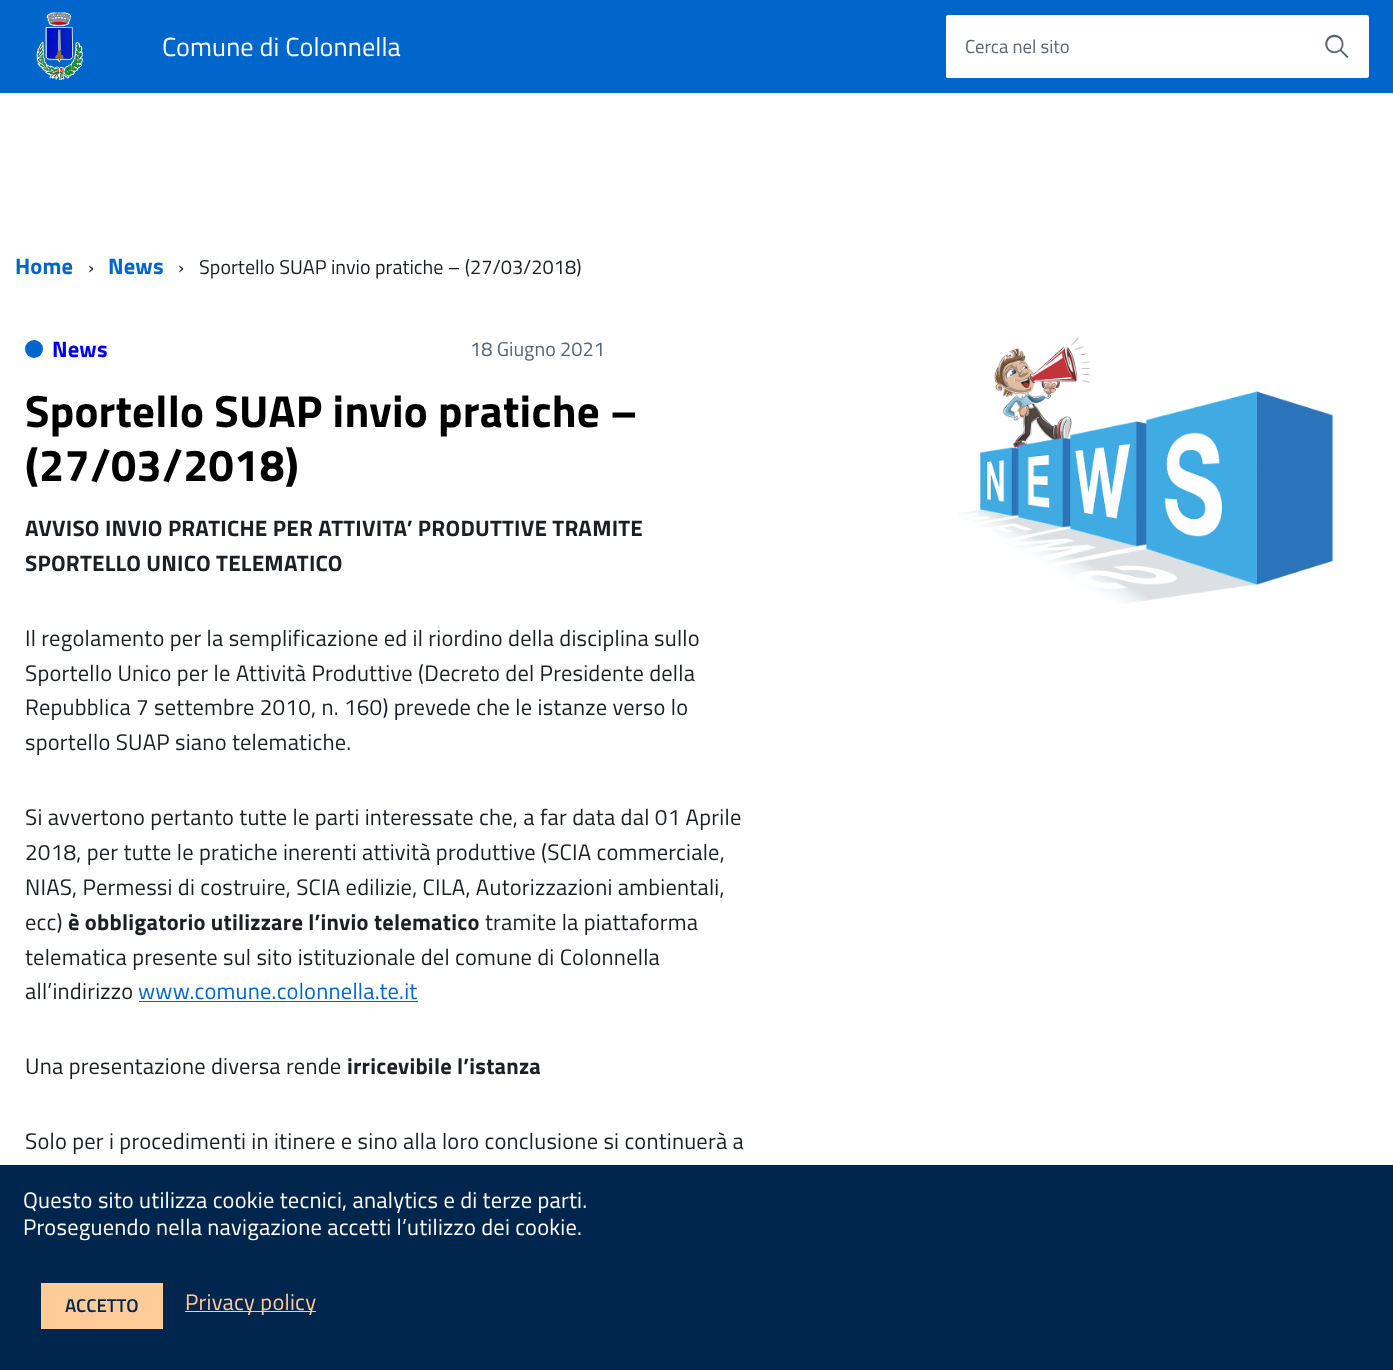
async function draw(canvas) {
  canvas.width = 1393
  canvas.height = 1370
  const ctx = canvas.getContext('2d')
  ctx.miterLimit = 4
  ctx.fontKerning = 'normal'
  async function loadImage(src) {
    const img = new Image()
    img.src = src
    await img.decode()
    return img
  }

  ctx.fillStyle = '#fff'
  ctx.fillRect(0, 0, 1393, 1370)
  ctx.fillStyle = '#06c'
  ctx.fillRect(0, 0, 1393, 93)
  ctx.drawImage(await loadImage('image0.png'), 36, 12, 47, 68)
  ctx.letterSpacing = '0.1px'
  ctx.font = '26.25px Titillium Web'
  ctx.fillStyle = '#fff'
  ctx.fillText('Comune di Colonnella', 162, 56)
  ctx.beginPath()
  ctx.roundRect(946, 15, 423, 63, 2.5)
  ctx.fill()
  ctx.beginPath()
  ctx.roundRect(946, 15, 360, 63, 2.5)
  ctx.fill()
  ctx.letterSpacing = '0px'
  ctx.font = 'bold 22.5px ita'
  ctx.fillStyle = '#5a6772'
  ctx.save()
  ctx.translate(1347, 58)
  ctx.rotate(-90 * Math.PI / 180)
  ctx.fillText('🔍', 0, 0)
  ctx.restore()
  ctx.font = '18.75px Titillium Web'
  ctx.fillText('Cerca nel sito', 965, 53)
  ctx.letterSpacing = '0.22px'
  ctx.font = 'bold 22.5px Titillium Web'
  ctx.fillStyle = '#06c'
  ctx.fillText('Home', 15, 274)
  ctx.letterSpacing = '0px'
  ctx.font = '20px Titillium Web'
  ctx.fillStyle = '#1c2024'
  ctx.fillText('›', 88, 274)
  ctx.letterSpacing = '0.22px'
  ctx.font = 'bold 22.5px Titillium Web'
  ctx.fillStyle = '#06c'
  ctx.fillText('News', 108, 274)
  ctx.letterSpacing = '0px'
  ctx.font = '20px Titillium Web'
  ctx.fillStyle = '#1c2024'
  ctx.fillText('›', 178, 274)
  ctx.fillText('Sportello SUAP invio pratiche – (27/03/2018)', 199, 274)
  ctx.fillStyle = '#06c'
  ctx.beginPath()
  ctx.arc(34, 349, 9, 0, 2 * Math.PI)
  ctx.fill()
  ctx.letterSpacing = '0.22px'
  ctx.font = 'bold 22.5px Titillium Web'
  ctx.fillStyle = '#00e'
  ctx.fillText('News', 52, 357)
  ctx.letterSpacing = '0px'
  ctx.font = '20px Titillium Web'
  ctx.fillStyle = '#5a6772'
  ctx.fillText('18 Giugno 2021', 470, 356)
  ctx.letterSpacing = '0.22px'
  ctx.font = 'bold 45px Titillium Web'
  ctx.fillStyle = '#000'
  ctx.fillText('Sportello SUAP invio pratiche –', 25, 427)
  ctx.fillText('(27/03/2018)', 25, 481)
  ctx.font = 'bold 22.5px Titillium Web'
  ctx.fillStyle = '#1c2024'
  ctx.fillText('AVVISO INVIO PRATICHE PER ATTIVITA’ PRODUTTIVE TRAMITE', 25, 536)
  ctx.fillText('SPORTELLO UNICO TELEMATICO', 25, 571)
  ctx.font = '22.5px Titillium Web'
  ctx.fillText('Il regolamento per la semplificazione ed il riordino della disciplina sullo', 25, 646)
  ctx.fillText('Sportello Unico per le Attività Produttive (Decreto del Presidente della', 25, 681)
  ctx.fillText('Repubblica 7 settembre 2010, n. 160) prevede che le istanze verso lo', 25, 715)
  ctx.fillText('sportello SUAP siano telematiche.', 25, 750)
  ctx.fillText('Si avvertono pertanto tutte le parti interessate che, a far data dal 01 Aprile', 25, 825)
  ctx.fillText('2018, per tutte le pratiche inerenti attività produttive (SCIA commerciale,', 25, 860)
  ctx.fillText('NIAS, Permessi di costruire, SCIA edilizie, CILA, Autorizzazioni ambientali,', 25, 895)
  ctx.fillText('ecc)', 25, 930)
  ctx.font = 'bold 22.5px Titillium Web'
  ctx.fillText('è obbligatorio utilizzare l’invio telematico', 68, 930)
  ctx.font = '22.5px Titillium Web'
  ctx.fillText('tramite la piattaforma', 485, 930)
  ctx.fillText('telematica presente sul sito istituzionale del comune di Colonnella', 25, 965)
  ctx.fillText('all’indirizzo', 25, 999)
  ctx.fillStyle = '#06c'
  ctx.fillText('www.comune.colonnella.te.it', 138, 999)
  ctx.fillRect(139, 1001, 279, 1)
  ctx.fillStyle = '#1c2024'
  ctx.fillText('Una presentazione diversa rende', 25, 1074)
  ctx.font = 'bold 22.5px Titillium Web'
  ctx.fillText('irricevibile l’istanza', 347, 1074)
  ctx.font = '22.5px Titillium Web'
  ctx.fillText('Solo per i procedimenti in itinere e sino alla loro conclusione si continuerà a', 25, 1149)
  ctx.drawImage(await loadImage('image1.png'), 957, 337, 376, 267)
  ctx.fillStyle = '#00264d'
  ctx.fillRect(0, 1165, 1393, 205)
  ctx.fillStyle = '#fff'
  ctx.fillText('Questo sito utilizza cookie tecnici, analytics e di terze parti.', 23, 1208)
  ctx.fillText('Proseguendo nella navigazione accetti l’utilizzo dei cookie.', 23, 1235)
  ctx.fillStyle = '#fc9'
  ctx.fillRect(41, 1283, 122, 46)
  ctx.letterSpacing = '0px'
  ctx.font = '600 18.75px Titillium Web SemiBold'
  ctx.fillStyle = '#00264d'
  ctx.fillText('ACCETTO', 65, 1312)
  ctx.fillStyle = '#fc9'
  ctx.fillRect(185, 1311, 131, 1)
  ctx.letterSpacing = '0.22px'
  ctx.font = '22.5px Titillium Web'
  ctx.fillText('Privacy policy', 185, 1310)
}

draw(document.querySelector('canvas'))
